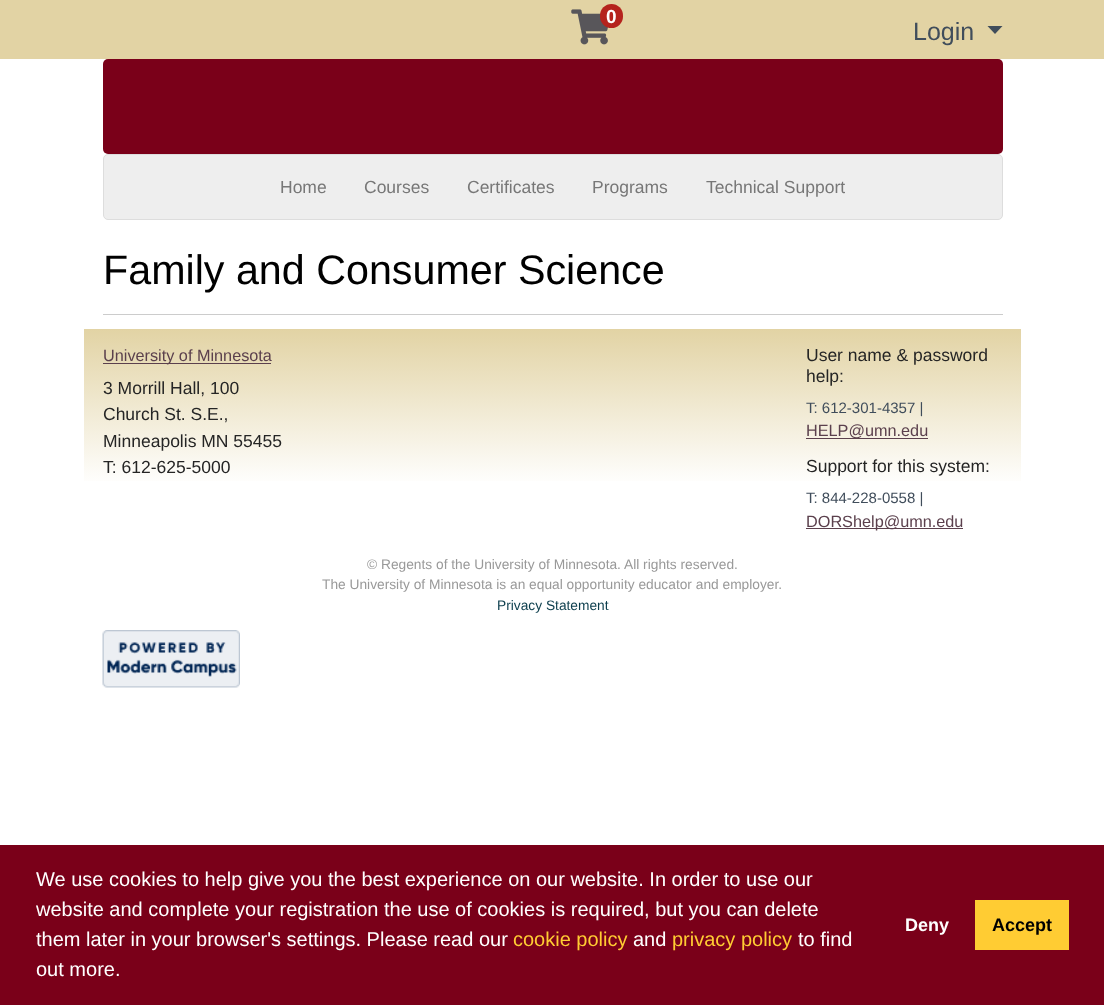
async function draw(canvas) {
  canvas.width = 1104
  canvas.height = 1005
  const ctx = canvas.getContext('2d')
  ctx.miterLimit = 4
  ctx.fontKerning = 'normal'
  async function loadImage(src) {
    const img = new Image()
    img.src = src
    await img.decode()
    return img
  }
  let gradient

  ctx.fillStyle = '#fff'
  ctx.fillRect(0, 0, 1104, 1005)
  ctx.fillStyle = '#e2d3a4'
  ctx.fillRect(0, 0, 1104, 59)
  ctx.drawImage(await loadImage('image0.png'), 571, 9, 37, 36)
  ctx.fillStyle = '#b5231d'
  ctx.beginPath()
  ctx.roundRect(600, 4, 23, 24, 11.5)
  ctx.fill()
  ctx.font = 'bold 19px Liberation Sans'
  ctx.fillStyle = '#fff'
  ctx.fillText('0', 606, 23)
  ctx.font = '25px Liberation Sans'
  ctx.fillStyle = '#404d5b'
  ctx.fillText('Login', 913, 40)
  ctx.beginPath()
  ctx.moveTo(987.5, 26)
  ctx.lineTo(1002.5, 26)
  ctx.lineTo(995, 34)
  ctx.closePath()
  ctx.fill()
  ctx.fillStyle = '#7a0019'
  ctx.beginPath()
  ctx.roundRect(103, 59, 900, 95, 5)
  ctx.fill()
  ctx.fillStyle = '#eee'
  ctx.beginPath()
  ctx.roundRect(103.5, 154.5, 899, 65, 4.5)
  ctx.fill()
  ctx.strokeStyle = '#ddd'
  ctx.stroke()
  ctx.font = '17.5px Liberation Sans'
  ctx.fillStyle = '#777'
  ctx.fillText('Home', 280, 193)
  ctx.fillText('Courses', 364, 193)
  ctx.fillText('Certificates', 467, 193)
  ctx.fillText('Programs', 592, 193)
  ctx.fillText('Technical Support', 706, 193)
  ctx.fillStyle = '#ccc'
  ctx.fillRect(103, 314, 900, 1)
  ctx.font = '41.25px Liberation Sans'
  ctx.fillStyle = '#000'
  ctx.fillText('Family and Consumer Science', 103, 284)
  gradient = ctx.createLinearGradient(553, 329, 553, 553)
  gradient.addColorStop(0, '#e2d3a4')
  gradient.addColorStop(0.7, '#fff')
  ctx.fillStyle = gradient
  ctx.fillRect(84, 329, 937, 152)
  ctx.fillStyle = '#5b404d'
  ctx.fillRect(103, 363, 168, 1)
  ctx.font = '16.25px Liberation Sans'
  ctx.fillText('University of Minnesota', 103, 361)
  ctx.font = '17.5px Liberation Sans'
  ctx.fillStyle = '#252525'
  ctx.fillText('3 Morrill Hall, 100', 103, 394)
  ctx.fillText('Church St. S.E.,', 103, 420)
  ctx.fillText('Minneapolis MN 55455', 103, 447)
  ctx.fillText('T: 612-625-5000', 103, 473)
  ctx.fillText('User name & password', 806, 361)
  ctx.fillText('help:', 806, 382)
  ctx.font = '15px Liberation Sans'
  ctx.fillStyle = '#404d5b'
  ctx.fillText('T: 612-301-4357 |', 806, 413)
  ctx.fillStyle = '#5b404d'
  ctx.fillRect(806, 438, 122, 1)
  ctx.font = '16.25px Liberation Sans'
  ctx.fillText('HELP@umn.edu', 806, 436)
  ctx.font = '17.5px Liberation Sans'
  ctx.fillStyle = '#252525'
  ctx.fillText('Support for this system:', 806, 472)
  ctx.font = '15px Liberation Sans'
  ctx.fillStyle = '#404d5b'
  ctx.fillText('T: 844-228-0558 |', 806, 503)
  ctx.fillStyle = '#5b404d'
  ctx.fillRect(806, 528, 157, 1)
  ctx.font = '16.25px Liberation Sans'
  ctx.fillText('DORShelp@umn.edu', 806, 527)
  ctx.font = '13.75px Liberation Sans'
  ctx.fillStyle = '#999'
  ctx.fillText('© Regents of the University of Minnesota. All rights reserved.', 367, 569)
  ctx.fillText('The University of Minnesota is an equal opportunity educator and employer.', 322, 589)
  ctx.fillStyle = '#0b3d4c'
  ctx.fillText('Privacy Statement', 497, 610)
  ctx.drawImage(await loadImage('image1.png'), 102, 630, 138, 58)
  ctx.fillStyle = '#7a0019'
  ctx.fillRect(0, 845, 1104, 160)
  ctx.font = '20px Liberation Sans'
  ctx.fillStyle = '#fff'
  ctx.fillText('We use cookies to help give you the best experience on our website. In order to use our', 36, 886)
  ctx.fillText('website and complete your registration the use of cookies is required, but you can delete', 36, 916)
  ctx.fillText('them later in your browser\'s settings. Please read our', 36, 946)
  ctx.fillStyle = '#fc3'
  ctx.fillText('cookie policy', 513, 946)
  ctx.fillStyle = '#fff'
  ctx.fillText('and', 633, 946)
  ctx.fillStyle = '#fc3'
  ctx.fillText('privacy policy', 672, 946)
  ctx.fillStyle = '#fff'
  ctx.fillText('to find', 798, 946)
  ctx.fillText('out more.', 36, 976)
  ctx.font = 'bold 18px Liberation Sans'
  ctx.fillText('Deny', 905, 931)
  ctx.fillStyle = '#fc3'
  ctx.fillRect(975, 900, 94, 50)
  ctx.fillStyle = '#000'
  ctx.fillText('Accept', 992, 931)
}

draw(document.querySelector('canvas'))
